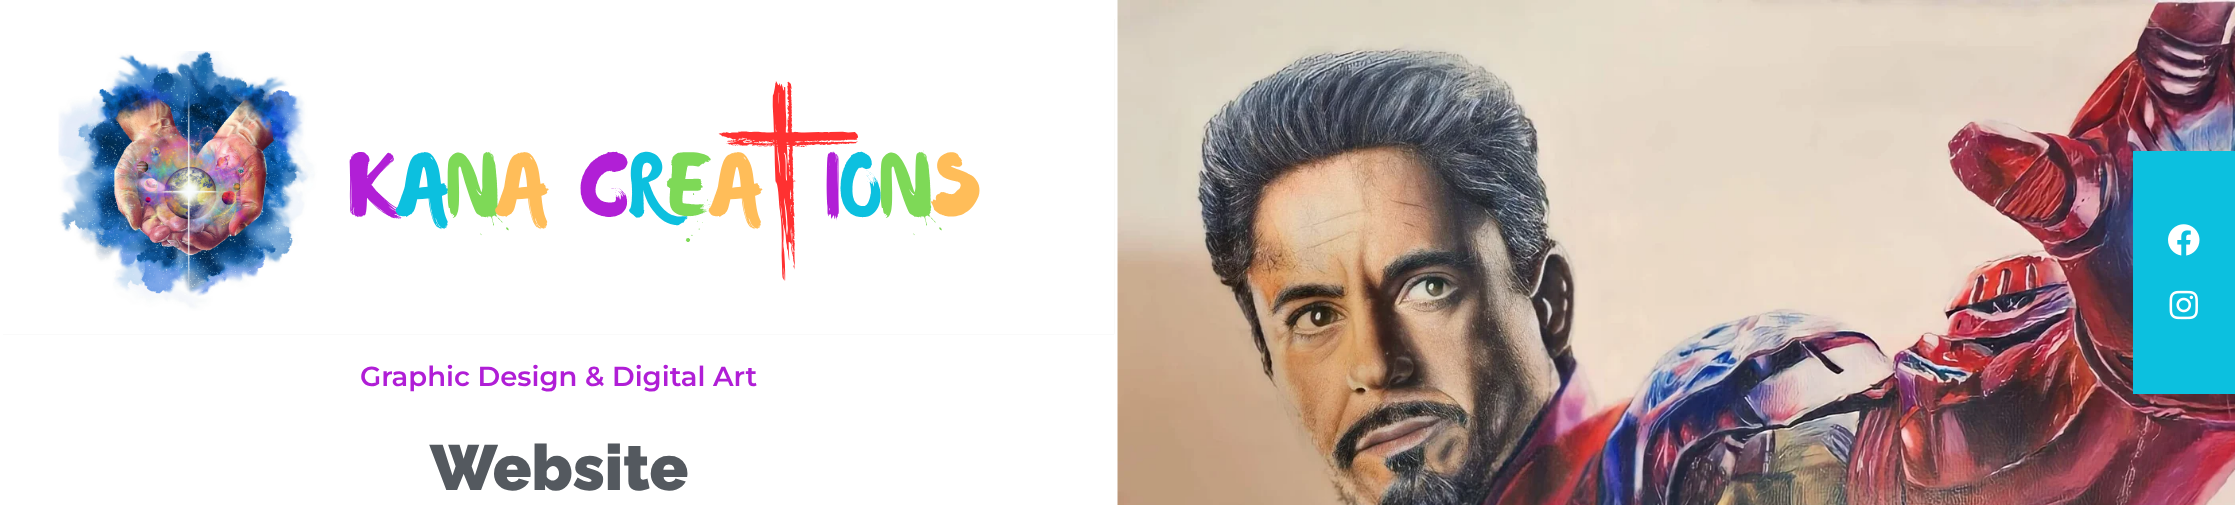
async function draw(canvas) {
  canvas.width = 2235
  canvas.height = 505
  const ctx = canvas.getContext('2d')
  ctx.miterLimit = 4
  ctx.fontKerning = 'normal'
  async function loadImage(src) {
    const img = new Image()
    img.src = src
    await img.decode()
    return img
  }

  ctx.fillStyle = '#fff'
  ctx.fillRect(0, 0, 2235, 505)
  ctx.drawImage(await loadImage('image0.png'), 3, 19, 1112, 316)
  ctx.font = '600 27.5px Montserrat'
  ctx.fillStyle = '#b01ed6'
  ctx.fillText('Graphic Design & Digital Art', 360, 386)
  ctx.font = '900 63.75px Raleway'
  ctx.fillStyle = '#54595f'
  ctx.fillText('Website', 430, 490)
  ctx.drawImage(await loadImage('image1.png'), 1117, 0, 1118, 505)
  ctx.fillStyle = '#0cc0df'
  ctx.fillRect(2133, 151, 102, 243)
  ctx.drawImage(await loadImage('image2.png'), 2168, 224, 32, 32)
  ctx.drawImage(await loadImage('image3.png'), 2169, 290, 29, 30)
}

draw(document.querySelector('canvas'))
